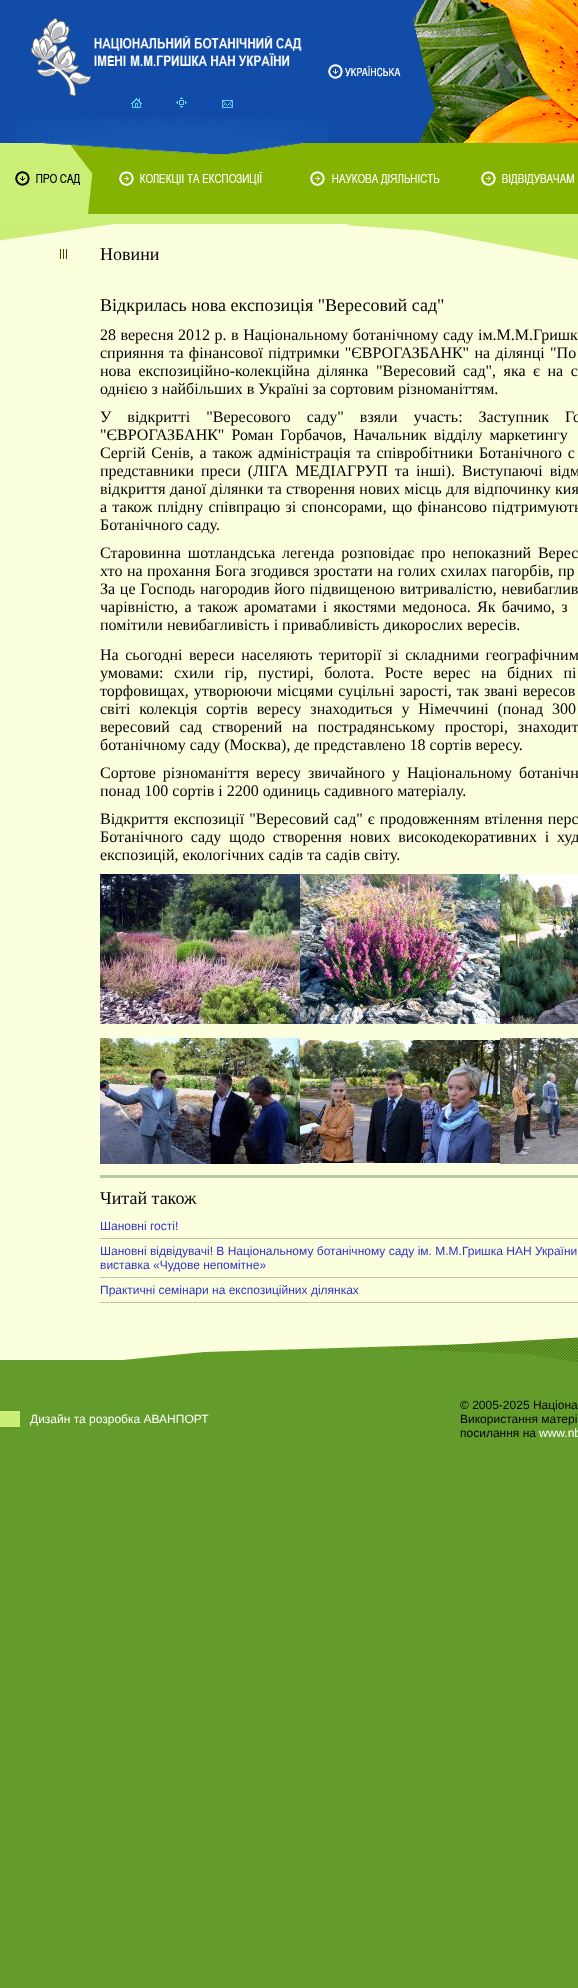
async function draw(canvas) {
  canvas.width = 578
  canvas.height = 1988
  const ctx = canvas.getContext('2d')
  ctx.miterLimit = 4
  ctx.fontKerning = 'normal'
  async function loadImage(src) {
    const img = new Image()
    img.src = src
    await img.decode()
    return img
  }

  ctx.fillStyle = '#649c2b'
  ctx.fillRect(0, 0, 578, 1988)
  ctx.fillStyle = '#114ca9'
  ctx.fillRect(0, 0, 409, 143)
  ctx.drawImage(await loadImage('image0.png'), 15, 118, 313, 24)
  ctx.drawImage(await loadImage('image1.png'), 31, 18, 271, 78)
  ctx.drawImage(await loadImage('image2.png'), 131, 98, 11, 10)
  ctx.drawImage(await loadImage('image3.png'), 176, 97, 11, 11)
  ctx.drawImage(await loadImage('image4.png'), 222, 100, 11, 8)
  ctx.fillStyle = '#86b202'
  ctx.fillRect(94, 143, 484, 71)
  ctx.fillStyle = '#ccef77'
  ctx.fillRect(0, 143, 69, 71)
  ctx.drawImage(await loadImage('image9.png'), 69, 144, 25, 70)
  ctx.drawImage(await loadImage('image5.png'), 37, 141, 268, 14)
  ctx.drawImage(await loadImage('image6.png'), 328, 64, 73, 15)
  ctx.drawImage(await loadImage('image7.png'), 413, 0, 165, 143)
  ctx.drawImage(await loadImage('image8.png'), 409, 0, 26, 143)
  ctx.drawImage(await loadImage('image10.png'), 15, 171, 65, 15)
  ctx.drawImage(await loadImage('image11.png'), 119, 171, 144, 15)
  ctx.drawImage(await loadImage('image12.png'), 310, 171, 130, 15)
  ctx.drawImage(await loadImage('image13.png'), 481, 171, 93, 15)
  ctx.fillRect(0, 214, 578, 10)
  ctx.fillStyle = '#fcffde'
  ctx.fillRect(0, 224, 578, 1113)
  ctx.drawImage(await loadImage('image14.png'), 0, 224, 113, 17)
  ctx.drawImage(await loadImage('image15.png'), 0, 1337, 578, 51)
  ctx.drawImage(await loadImage('image16.png'), 345, 224, 233, 36)
  ctx.drawImage(await loadImage('image17.png'), 60, 249, 7, 10)
  ctx.font = '18px Liberation Serif'
  ctx.fillStyle = '#000'
  ctx.fillText('Новини', 100, 260)
  ctx.fillText('Відкрилась нова експозиція "Вересовий сад"', 100, 311)
  ctx.wordSpacing = '0.5px'
  ctx.font = '16px Liberation Serif'
  ctx.fillText('28 вересня 2012 р. в Національному ботанічному саду ім.М.М.Гришк', 100, 340)
  ctx.wordSpacing = '1.25px'
  ctx.fillText('сприяння та фінансової підтримки "ЄВРОГАЗБАНК" на ділянці "По', 100, 358)
  ctx.wordSpacing = '3.5px'
  ctx.fillText('нова експозиційно-колекційна ділянка "Вересовий сад", яка є на с', 100, 376)
  ctx.wordSpacing = '0px'
  ctx.fillText('однією з найбільших в Україні за сортовим різноманіттям.', 100, 394)
  ctx.wordSpacing = '12px'
  ctx.fillText('У відкритті "Вересового саду" взяли участь: Заступник Го', 100, 422)
  ctx.wordSpacing = '3px'
  ctx.fillText('"ЄВРОГАЗБАНК" Роман Горбачов, Начальник відділу маркетингу', 100, 440)
  ctx.wordSpacing = '1.75px'
  ctx.fillText('Сергій Сенів, а також адміністрація та співробітники Ботанічного с', 100, 458)
  ctx.wordSpacing = '3px'
  ctx.fillText('представники преси (ЛІГА МЕДІАГРУП та інші). Виступаючі відм', 100, 476)
  ctx.wordSpacing = '0.25px'
  ctx.fillText('відкриття даної ділянки та створення нових місць для відпочинку кия', 100, 494)
  ctx.wordSpacing = '1.25px'
  ctx.fillText('а також плідну співпрацю зі спонсорами, що фінансово підтримують', 100, 512)
  ctx.wordSpacing = '0px'
  ctx.fillText('Ботанічного саду.', 100, 530)
  ctx.wordSpacing = '2.75px'
  ctx.fillText('Старовинна шотландська легенда розповідає про непоказний Верес', 100, 558)
  ctx.wordSpacing = '0.5px'
  ctx.fillText('хто на прохання Бога згодився зростати на голих схилах пагорбів, пр', 100, 576)
  ctx.wordSpacing = '0.75px'
  ctx.fillText('За це Господь нагородив його підвищеною витривалістю, невибаглив', 100, 594)
  ctx.wordSpacing = '2.25px'
  ctx.fillText('чарівністю, а також ароматами і якостями медоноса. Як бачимо, з', 100, 612)
  ctx.wordSpacing = '0px'
  ctx.fillText('помітили невибагливість і привабливість дикорослих вересів.', 100, 630)
  ctx.wordSpacing = '2.5px'
  ctx.fillText('На сьогодні вереси населяють території зі складними географічним', 100, 660)
  ctx.wordSpacing = '6.5px'
  ctx.fillText('умовами: схили гір, пустирі, болота. Росте верес на бідних пі', 100, 678)
  ctx.wordSpacing = '1px'
  ctx.fillText('торфовищах, утворюючи місцями суцільні зарості, так звані вересов', 100, 696)
  ctx.wordSpacing = '4.75px'
  ctx.fillText('світі колекція сортів вересу знаходиться у Німеччині (понад 300', 100, 714)
  ctx.wordSpacing = '5.75px'
  ctx.fillText('вересовий сад створений на пострадянському просторі, знаходит', 100, 732)
  ctx.wordSpacing = '0px'
  ctx.fillText('ботанічному саду (Москва), де представлено 18 сортів вересу.', 100, 750)
  ctx.wordSpacing = '3px'
  ctx.fillText('Сортове різноманіття вересу звичайного у Національному ботанічн', 100, 778)
  ctx.wordSpacing = '0px'
  ctx.fillText('понад 100 сортів і 2200 одиниць садивного матеріалу.', 100, 796)
  ctx.wordSpacing = '1px'
  ctx.fillText('Відкриття експозиції "Вересовий сад" є продовженням втілення перс', 100, 824)
  ctx.wordSpacing = '3.75px'
  ctx.fillText('Ботанічного саду щодо створення нових високодекоративних і худ', 100, 842)
  ctx.wordSpacing = '0px'
  ctx.fillText('експозицій, екологічних садів та садів світу.', 100, 860)
  ctx.drawImage(await loadImage('image18.png'), 100, 874, 200, 150)
  ctx.drawImage(await loadImage('image19.png'), 300, 874, 200, 150)
  ctx.drawImage(await loadImage('image20.png'), 500, 874, 78, 150)
  ctx.drawImage(await loadImage('image21.png'), 100, 1038, 200, 126)
  ctx.drawImage(await loadImage('image22.png'), 300, 1040, 200, 123)
  ctx.drawImage(await loadImage('image23.png'), 500, 1038, 78, 126)
  ctx.fillStyle = '#bbc9a1'
  ctx.fillRect(100, 1175, 478, 3)
  ctx.font = '18px Liberation Serif'
  ctx.fillStyle = '#000'
  ctx.fillText('Читай також', 100, 1204)
  ctx.fillStyle = '#bbc9a1'
  ctx.fillRect(100, 1238, 478, 1)
  ctx.font = '12px Liberation Sans'
  ctx.fillStyle = '#33c'
  ctx.fillText('Шановні гості!', 100, 1230)
  ctx.fillStyle = '#bbc9a1'
  ctx.fillRect(100, 1277, 478, 1)
  ctx.fillStyle = '#33c'
  ctx.fillText('Шановні відвідувачі! В Національному ботанічному саду ім. М.М.Гришка НАН України', 100, 1255)
  ctx.fillText('виставка «Чудове непомітне»', 100, 1269)
  ctx.fillStyle = '#bbc9a1'
  ctx.fillRect(100, 1302, 478, 1)
  ctx.fillStyle = '#33c'
  ctx.fillText('Практичні семінари на експозиційних ділянках', 100, 1294)
  ctx.fillStyle = '#cbef76'
  ctx.fillRect(0, 1411, 20, 16)
  ctx.fillStyle = '#fff'
  ctx.fillText('Дизайн та розробка АВАНПОРТ', 30, 1423)
  ctx.fillStyle = '#000'
  ctx.fillText('© 2005-2025 Націона', 460, 1409)
  ctx.fillText('Використання матері', 460, 1423)
  ctx.fillText('посилання на', 460, 1437)
  ctx.fillStyle = '#fff'
  ctx.fillText('www.nb', 539, 1437)
}

draw(document.querySelector('canvas'))
